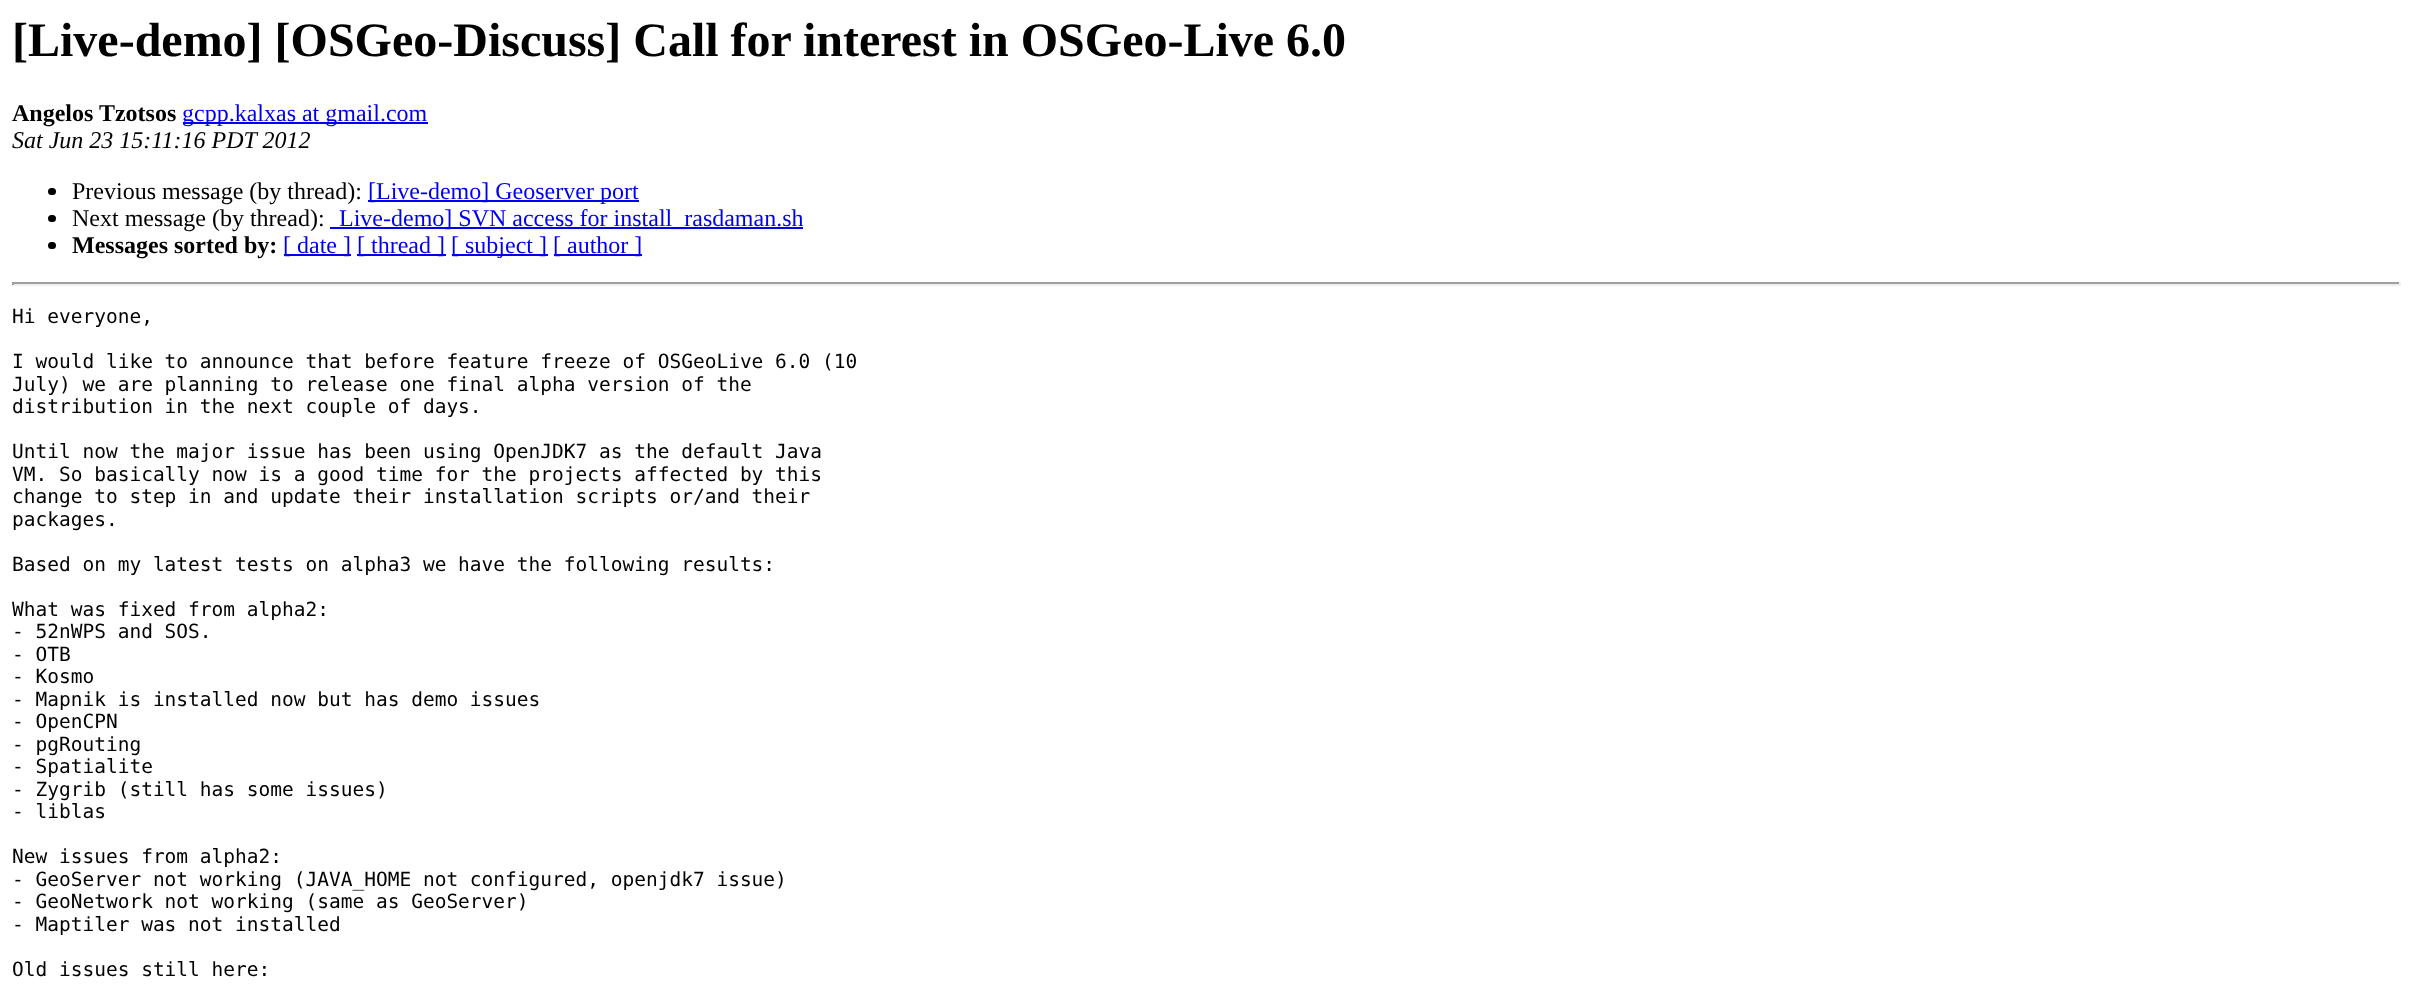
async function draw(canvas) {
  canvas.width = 2412
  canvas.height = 991
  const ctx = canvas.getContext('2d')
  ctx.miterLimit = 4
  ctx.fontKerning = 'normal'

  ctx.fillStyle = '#fff'
  ctx.fillRect(0, 0, 2412, 991)
  ctx.font = 'bold 48px Liberation Serif'
  ctx.fillStyle = '#000'
  ctx.fillText('[Live-demo] [OSGeo-Discuss] Call for interest in OSGeo-Live 6.0', 12, 56)
  ctx.font = 'bold 24px Liberation Serif'
  ctx.fillText('Angelos Tzotsos', 12, 121)
  ctx.fillStyle = '#00e'
  ctx.fillRect(183, 122, 245, 2)
  ctx.font = '24px Liberation Serif'
  ctx.fillText('gcpp.kalxas at gmail.com', 182, 121)
  ctx.font = 'italic 24px Liberation Serif'
  ctx.fillStyle = '#000'
  ctx.fillText('Sat Jun 23 15:11:16 PDT 2012', 12, 148)
  ctx.beginPath()
  ctx.roundRect(48, 188, 8, 7, 3.5)
  ctx.fill()
  ctx.font = '24px Liberation Serif'
  ctx.fillText('Previous message (by thread):', 72, 199)
  ctx.fillStyle = '#00e'
  ctx.fillRect(368, 200, 271, 2)
  ctx.fillText('[Live-demo] Geoserver port', 368, 199)
  ctx.fillStyle = '#000'
  ctx.beginPath()
  ctx.roundRect(48, 215, 8, 7, 3.5)
  ctx.fill()
  ctx.fillText('Next message (by thread):', 72, 226)
  ctx.fillStyle = '#00e'
  ctx.fillRect(330, 227, 473, 2)
  ctx.fillText('Live-demo] SVN access for install_rasdaman.sh', 339, 226)
  ctx.fillStyle = '#000'
  ctx.beginPath()
  ctx.roundRect(48, 242, 8, 7, 3.5)
  ctx.fill()
  ctx.font = 'bold 24px Liberation Serif'
  ctx.fillText('Messages sorted by:', 72, 253)
  ctx.fillStyle = '#00e'
  ctx.fillRect(284, 254, 67, 2)
  ctx.font = '24px Liberation Serif'
  ctx.fillText('[ date ]', 283, 253)
  ctx.fillRect(357, 254, 89, 2)
  ctx.fillText('[ thread ]', 357, 253)
  ctx.fillRect(452, 254, 96, 2)
  ctx.fillText('[ subject ]', 451, 253)
  ctx.fillRect(554, 254, 88, 2)
  ctx.fillText('[ author ]', 553, 253)
  ctx.fillStyle = '#9f9f9f'
  ctx.fillRect(12, 282, 2388, 2)
  ctx.fillStyle = '#eee'
  ctx.fillRect(2399, 282, 2, 3)
  ctx.fillRect(12, 284, 2388, 2)
  ctx.fillStyle = '#9f9f9f'
  ctx.fillRect(12, 282, 2, 3)
  ctx.font = '19.5px DejaVu Sans Mono'
  ctx.fillStyle = '#000'
  ctx.fillText('Hi everyone,', 12, 323)
  ctx.fillText('I would like to announce that before feature freeze of OSGeoLive 6.0 (10', 12, 368)
  ctx.fillText('July) we are planning to release one final alpha version of the', 12, 391)
  ctx.fillText('distribution in the next couple of days.', 12, 413)
  ctx.fillText('Until now the major issue has been using OpenJDK7 as the default Java', 12, 458)
  ctx.fillText('VM. So basically now is a good time for the projects affected by this', 12, 481)
  ctx.fillText('change to step in and update their installation scripts or/and their', 12, 503)
  ctx.fillText('packages.', 12, 526)
  ctx.fillText('Based on my latest tests on alpha3 we have the following results:', 12, 571)
  ctx.fillText('What was fixed from alpha2:', 12, 616)
  ctx.fillText('- 52nWPS and SOS.', 12, 638)
  ctx.fillText('- OTB', 12, 661)
  ctx.fillText('- Kosmo', 12, 683)
  ctx.fillText('- Mapnik is installed now but has demo issues', 12, 706)
  ctx.fillText('- OpenCPN', 12, 728)
  ctx.fillText('- pgRouting', 12, 751)
  ctx.fillText('- Spatialite', 12, 773)
  ctx.fillText('- Zygrib (still has some issues)', 12, 796)
  ctx.fillText('- liblas', 12, 818)
  ctx.fillText('New issues from alpha2:', 12, 863)
  ctx.fillText('- GeoServer not working (JAVA_HOME not configured, openjdk7 issue)', 12, 886)
  ctx.fillText('- GeoNetwork not working (same as GeoServer)', 12, 908)
  ctx.fillText('- Maptiler was not installed', 12, 931)
  ctx.fillText('Old issues still here:', 12, 976)
}

draw(document.querySelector('canvas'))
